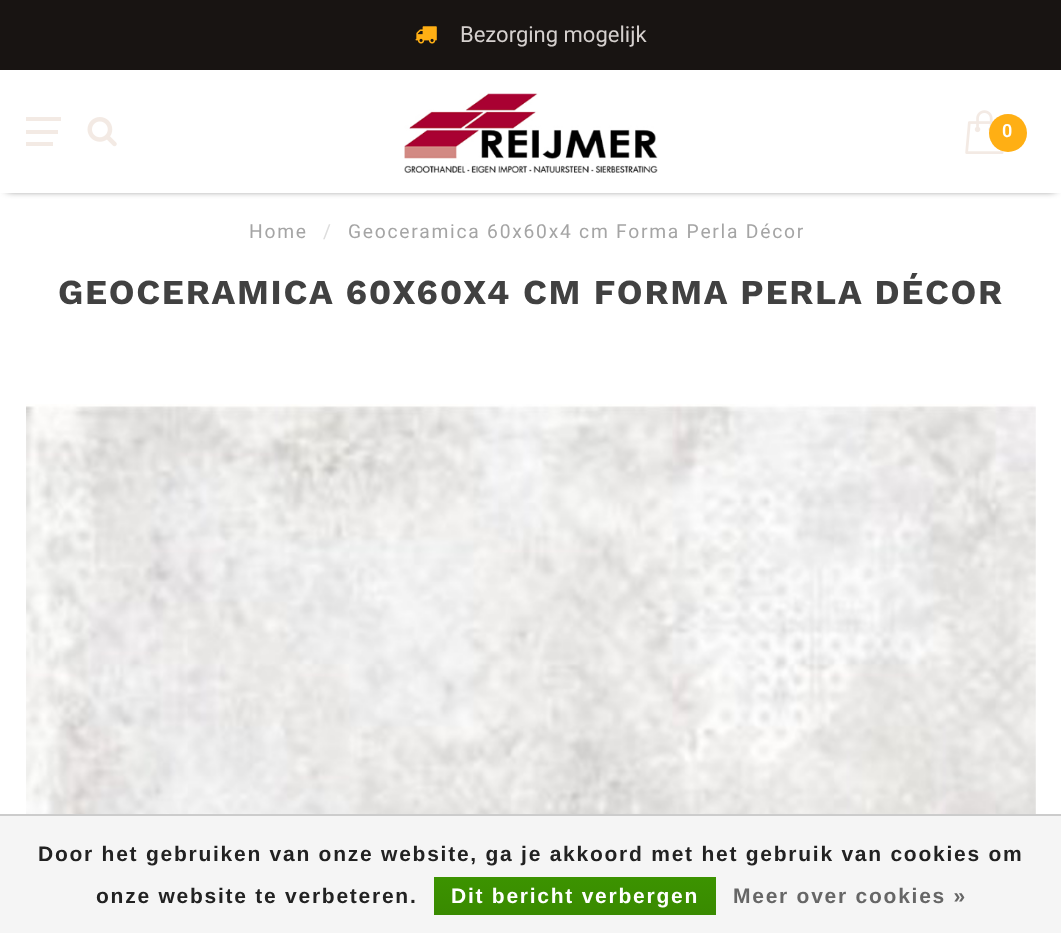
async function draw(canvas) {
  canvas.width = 1061
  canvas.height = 933
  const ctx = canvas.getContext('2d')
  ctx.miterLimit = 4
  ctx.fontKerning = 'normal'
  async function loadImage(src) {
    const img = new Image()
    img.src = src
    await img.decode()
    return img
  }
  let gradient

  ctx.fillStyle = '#fff'
  ctx.fillRect(0, 0, 1061, 933)
  ctx.fillStyle = '#181412'
  ctx.fillRect(0, 0, 1061, 70)
  ctx.drawImage(await loadImage('image0.png'), 415, 26, 22, 18)
  ctx.font = '22px Roboto'
  ctx.fillStyle = '#d5d0ce'
  ctx.fillText('Bezorging mogelijk', 460, 42)
  ctx.fillStyle = '#000'
  ctx.filter = 'blur(4.5px)'
  ctx.beginPath()
  ctx.rect(7, 81, 1048, 108)
  ctx.fill()
  ctx.filter = 'none'
  ctx.fillStyle = '#fff'
  ctx.fillRect(0, 71, 1061, 122)
  ctx.fillStyle = '#f3eae4'
  ctx.fillRect(26, 117, 35, 4)
  ctx.fillRect(26, 130, 32, 4)
  ctx.fillRect(26, 142, 27, 4)
  ctx.drawImage(await loadImage('image1.png'), 87, 117, 30, 30)
  ctx.drawImage(await loadImage('image2.png'), 404, 93, 254, 80)
  ctx.drawImage(await loadImage('image3.png'), 965, 110, 39, 44)
  ctx.fillStyle = '#ffaf14'
  ctx.beginPath()
  ctx.arc(1008, 133, 19, 0, 2 * Math.PI)
  ctx.fill()
  ctx.letterSpacing = '1.75px'
  ctx.font = '600 18px Roboto'
  ctx.fillStyle = '#fff'
  ctx.fillText('0', 1002, 137)
  ctx.font = '19.25px Roboto'
  ctx.fillStyle = '#a5a5a5'
  ctx.fillText('Home', 249, 238)
  ctx.fillStyle = '#ddd'
  ctx.fillText('/', 323, 238)
  ctx.fillStyle = '#a5a5a5'
  ctx.fillText('Geoceramica 60x60x4 cm Forma Perla Décor', 348, 238)
  ctx.font = 'bold 35px Work Sans'
  ctx.fillStyle = '#414141'
  ctx.fillText('GEOCERAMICA 60X60X4 CM FORMA PERLA DÉCOR', 58, 304)
  ctx.drawImage(await loadImage('image4.png'), 26, 404, 1010, 410)
  ctx.fillStyle = '#f5f5f5'
  ctx.fillRect(0, 816, 1061, 117)
  ctx.fillStyle = '#ccc'
  ctx.fillRect(0, 814, 1061, 2)
  ctx.font = 'bold 21px Liberation Sans'
  ctx.fillStyle = '#222'
  ctx.fillText('Door het gebruiken van onze website, ga je akkoord met het gebruik van cookies om', 38, 861)
  ctx.fillText('onze website te verbeteren.', 96, 903)
  gradient = ctx.createLinearGradient(575, 877, 575, 915)
  gradient.addColorStop(0, '#3c9300')
  gradient.addColorStop(1, '#398a00')
  ctx.fillStyle = gradient
  ctx.fillRect(434, 877, 282, 38)
  ctx.fillStyle = '#fff'
  ctx.fillText('Dit bericht verbergen', 451, 903)
  ctx.fillStyle = '#666'
  ctx.fillText('Meer over cookies »', 733, 903)
}

draw(document.querySelector('canvas'))
